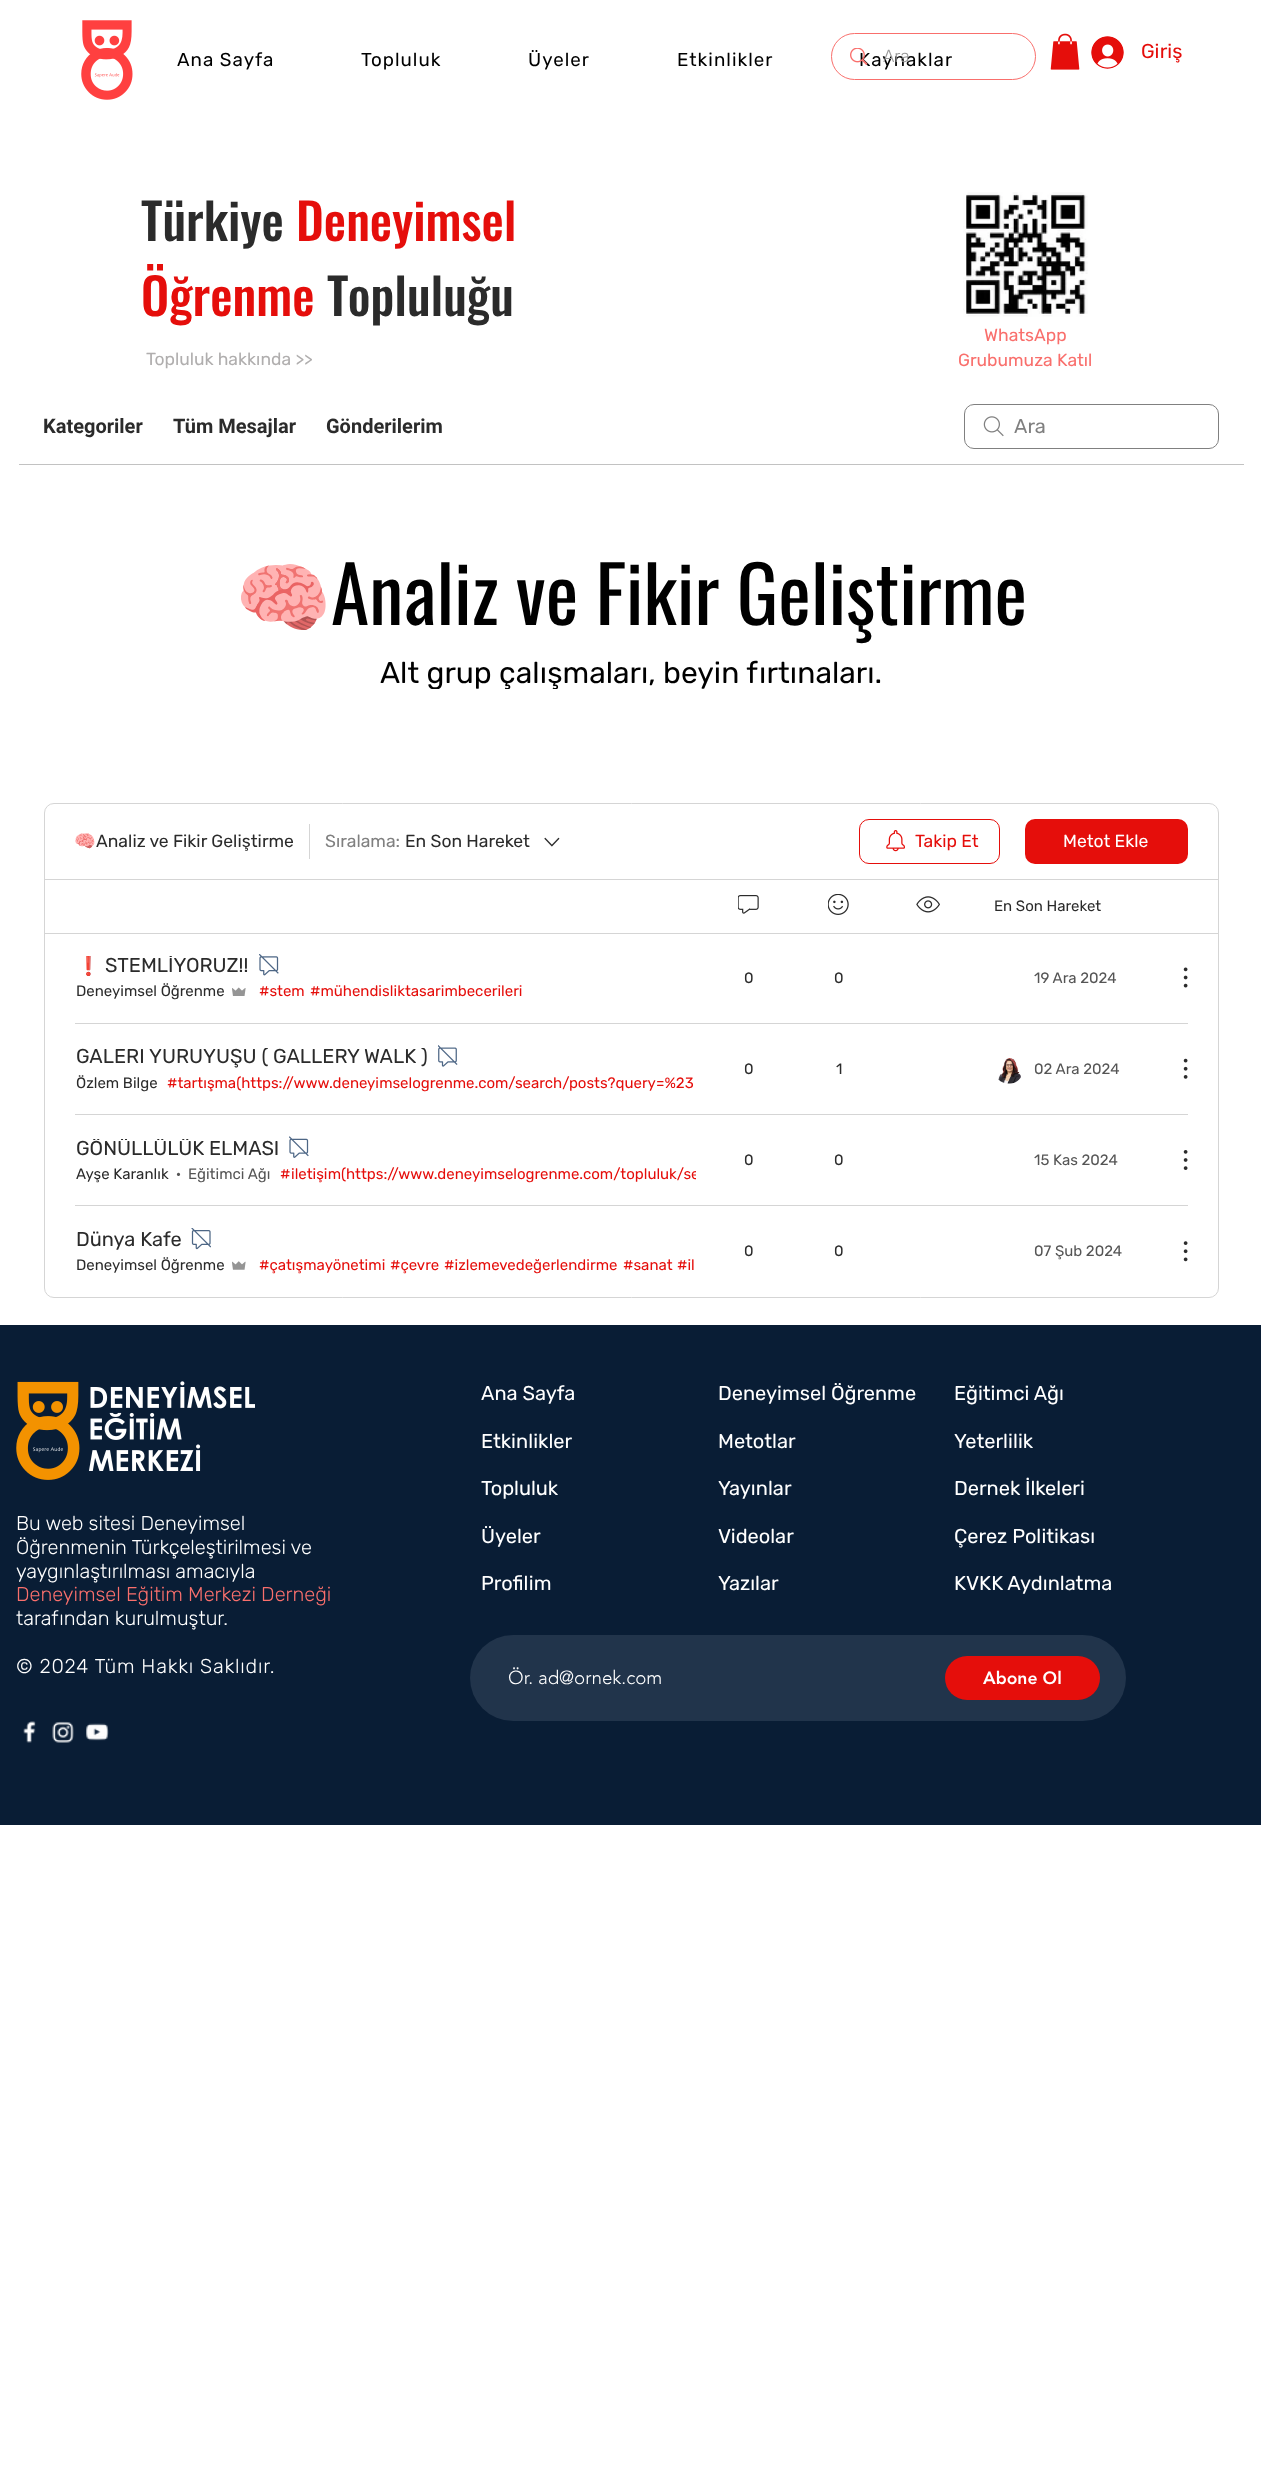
async function draw(canvas) {
  canvas.width = 1261
  canvas.height = 2468
  const ctx = canvas.getContext('2d')
  ctx.miterLimit = 4
  ctx.fontKerning = 'normal'
  async function loadImage(src) {
    const img = new Image()
    img.src = src
    await img.decode()
    return img
  }

  ctx.fillStyle = '#fff'
  ctx.fillRect(0, 0, 1261, 2468)
  ctx.drawImage(await loadImage('image0.png'), 81, 20, 52, 80)
  ctx.letterSpacing = '1px'
  ctx.font = '18.75px Rubik'
  ctx.fillStyle = '#000'
  ctx.fillText('Ana Sayfa', 177, 66)
  ctx.fillText('Topluluk', 361, 66)
  ctx.fillText('Üyeler', 528, 66)
  ctx.fillText('Etkinlikler', 677, 66)
  ctx.fillText('Kaynaklar', 859, 66)
  ctx.beginPath()
  ctx.roundRect(831.5, 33.5, 204, 46, 23)
  ctx.strokeStyle = '#f96f6c'
  ctx.stroke()
  ctx.drawImage(await loadImage('image1.png'), 850, 48, 18, 17)
  ctx.letterSpacing = '0px'
  ctx.font = '300 17.5px Rubik'
  ctx.fillStyle = '#999'
  ctx.fillText('Ara', 883, 62)
  ctx.drawImage(await loadImage('image2.png'), 1050, 33, 30, 37)
  ctx.drawImage(await loadImage('image3.png'), 1091, 36, 33, 33)
  ctx.font = '20px Rubik'
  ctx.fillStyle = '#e50e0b'
  ctx.fillText('Giriş', 1141, 58)
  ctx.font = '500 50px Oswald'
  ctx.fillStyle = '#2b2b2b'
  ctx.fillText('Türkiye', 141, 241)
  ctx.fillStyle = '#e50e0b'
  ctx.fillText('Deneyimsel', 296, 241)
  ctx.fillText('Öğrenme', 141, 316)
  ctx.fillStyle = '#2b2b2b'
  ctx.fillText('Topluluğu', 327, 316)
  ctx.font = '17.5px Rubik'
  ctx.fillStyle = '#b0aeae'
  ctx.fillText('Topluluk hakkında >>', 146, 365)
  ctx.drawImage(await loadImage('image4.png'), 963, 192, 125, 125)
  ctx.fillStyle = '#f96f6c'
  ctx.fillText('WhatsApp', 984, 341)
  ctx.fillText('Grubumuza Katıl', 958, 366)
  ctx.fillStyle = '#c2c2c2'
  ctx.fillRect(19, 464, 1225, 1)
  ctx.font = 'bold 20px Roboto'
  ctx.fillStyle = '#2b2b2b'
  ctx.fillText('Kategoriler', 43, 433)
  ctx.fillText('Tüm Mesajlar', 173, 433)
  ctx.fillText('Gönderilerim', 326, 433)
  ctx.drawImage(await loadImage('image5.png'), 983, 416, 21, 21)
  ctx.beginPath()
  ctx.roundRect(964.5, 404.5, 254, 44, 9.5)
  ctx.strokeStyle = '#808080'
  ctx.stroke()
  ctx.font = '20px Rubik'
  ctx.fillStyle = '#808080'
  ctx.fillText('Ara', 1014, 433)
  ctx.font = 'bold 77.5px Noto Color Emoji'
  ctx.fillStyle = '#000'
  ctx.fillText('🧠', 235, 625)
  ctx.wordSpacing = '-0.5px'
  ctx.font = '77.5px Oswald'
  ctx.fillText('Analiz ve Fikir Geliştirme', 331, 625)
  ctx.save()
  ctx.beginPath()
  ctx.rect(206, 656, 850, 33)
  ctx.clip()
  ctx.wordSpacing = '0px'
  ctx.font = '30px Rubik'
  ctx.fillText('Alt grup çalışmaları, beyin fırtınaları.', 380, 683)
  ctx.restore()
  ctx.beginPath()
  ctx.roundRect(44.5, 803.5, 1174, 494, 9.5)
  ctx.strokeStyle = '#d5d5d5'
  ctx.stroke()
  ctx.save()
  ctx.beginPath()
  ctx.rect(75, 829, 219, 25)
  ctx.clip()
  ctx.wordSpacing = '0px'
  ctx.font = 'bold 17.5px Noto Color Emoji'
  ctx.fillStyle = '#2b2b2b'
  ctx.fillText('🧠', 74, 847)
  ctx.restore()
  ctx.wordSpacing = '0px'
  ctx.font = '17.5px Rubik'
  ctx.fillStyle = '#2b2b2b'
  ctx.fillText('Analiz ve Fikir Geliştirme', 96, 847)
  ctx.fillStyle = '#d5d5d5'
  ctx.fillRect(309, 824, 1, 35)
  ctx.fillStyle = '#808080'
  ctx.fillText('Sıralama:', 325, 847)
  ctx.fillStyle = '#2b2b2b'
  ctx.fillText('En Son Hareket', 405, 847)
  ctx.drawImage(await loadImage('image6.png'), 544, 837, 16, 10)
  ctx.beginPath()
  ctx.roundRect(859.5, 819.5, 140, 44, 9.5)
  ctx.strokeStyle = '#e50e0b'
  ctx.stroke()
  ctx.drawImage(await loadImage('image7.png'), 886, 830, 19, 22)
  ctx.fillStyle = '#e50e0b'
  ctx.fillText('Takip Et', 915, 847)
  ctx.beginPath()
  ctx.roundRect(1025, 819, 163, 45, 10)
  ctx.fill()
  ctx.fillStyle = '#fff'
  ctx.fillText('Metot Ekle', 1063, 847)
  ctx.fillStyle = '#d5d5d5'
  ctx.fillRect(45, 879, 1173, 1)
  ctx.drawImage(await loadImage('image8.png'), 738, 895, 21, 19)
  ctx.drawImage(await loadImage('image9.png'), 828, 894, 21, 21)
  ctx.drawImage(await loadImage('image10.png'), 916, 896, 24, 17)
  ctx.font = '15px Rubik'
  ctx.fillStyle = '#2b2b2b'
  ctx.fillText('En Son Hareket', 994, 911)
  ctx.fillStyle = '#d5d5d5'
  ctx.fillRect(45, 933, 1173, 1)
  ctx.save()
  ctx.beginPath()
  ctx.rect(76, 956, 173, 20)
  ctx.clip()
  ctx.font = 'bold 20px Noto Color Emoji'
  ctx.fillStyle = '#2b2b2b'
  ctx.fillText('❗️', 76, 972)
  ctx.font = '20px Rubik'
  ctx.fillText('STEMLİYORUZ!!', 105, 972)
  ctx.restore()
  ctx.drawImage(await loadImage('image11.png'), 259, 954, 20, 22)
  ctx.fillStyle = '#2b2b2b'
  ctx.fillText('Deneyimsel Öğrenme', 76, 996)
  ctx.drawImage(await loadImage('image12.png'), 232, 987, 14, 9)
  ctx.fillStyle = '#e50e0b'
  ctx.fillText('#stem', 259, 996)
  ctx.fillText('#mühendisliktasarimbecerileri', 310, 996)
  ctx.fillStyle = '#2b2b2b'
  ctx.fillText('0', 744, 983)
  ctx.fillText('0', 834, 983)
  ctx.fillStyle = '#555'
  ctx.fillText('19 Ara 2024', 1034, 983)
  ctx.drawImage(await loadImage('image13.png'), 1183, 967, 5, 21)
  ctx.fillStyle = '#d5d5d5'
  ctx.fillRect(75, 1023, 1113, 1)
  ctx.save()
  ctx.beginPath()
  ctx.rect(76, 1048, 352, 20)
  ctx.clip()
  ctx.font = '20px Rubik'
  ctx.fillStyle = '#2b2b2b'
  ctx.fillText('GALERİ YÜRÜYÜŞÜ ( GALLERY WALK )', 76, 1063)
  ctx.restore()
  ctx.drawImage(await loadImage('image14.png'), 438, 1045, 20, 22)
  ctx.fillStyle = '#2b2b2b'
  ctx.fillText('Özlem Bilge', 76, 1088)
  ctx.fillStyle = '#e50e0b'
  ctx.fillText('#tartışma(https://www.deneyimselogrenme.com/search/posts?query=%23', 167, 1088)
  ctx.fillStyle = '#2b2b2b'
  ctx.fillText('0', 744, 1074)
  ctx.fillText('1', 836, 1074)
  ctx.drawImage(await loadImage('image15.png'), 998, 1058, 23, 26)
  ctx.fillStyle = '#555'
  ctx.fillText('02 Ara 2024', 1034, 1074)
  ctx.drawImage(await loadImage('image16.png'), 1183, 1058, 5, 21)
  ctx.fillStyle = '#d5d5d5'
  ctx.fillRect(75, 1114, 1113, 1)
  ctx.save()
  ctx.beginPath()
  ctx.rect(76, 1139, 203, 20)
  ctx.clip()
  ctx.font = '20px Rubik'
  ctx.fillStyle = '#2b2b2b'
  ctx.fillText('GÖNÜLLÜLÜK ELMASI', 76, 1155)
  ctx.restore()
  ctx.drawImage(await loadImage('image17.png'), 289, 1136, 20, 22)
  ctx.fillStyle = '#2b2b2b'
  ctx.fillText('Ayşe Karanlık', 76, 1179)
  ctx.fillStyle = '#555'
  ctx.fillText('·', 176, 1179)
  ctx.fillText('Eğitimci Ağı', 188, 1179)
  ctx.fillStyle = '#e50e0b'
  ctx.fillText('#', 280, 1179)
  ctx.save()
  ctx.beginPath()
  ctx.rect(280, 1164, 416, 20)
  ctx.clip()
  ctx.fillText('i̇letişim(https://www.deneyimselogrenme.com/topluluk/se', 291, 1179)
  ctx.restore()
  ctx.fillStyle = '#2b2b2b'
  ctx.fillText('0', 744, 1165)
  ctx.fillText('0', 834, 1165)
  ctx.fillStyle = '#555'
  ctx.fillText('15 Kas 2024', 1034, 1165)
  ctx.drawImage(await loadImage('image18.png'), 1183, 1150, 5, 20)
  ctx.fillStyle = '#d5d5d5'
  ctx.fillRect(75, 1205, 1113, 1)
  ctx.font = '20px Rubik'
  ctx.fillStyle = '#2b2b2b'
  ctx.fillText('Dünya Kafe', 76, 1246)
  ctx.drawImage(await loadImage('image19.png'), 191, 1228, 20, 22)
  ctx.font = '15px Rubik'
  ctx.fillText('Deneyimsel Öğrenme', 76, 1270)
  ctx.drawImage(await loadImage('image20.png'), 232, 1261, 14, 9)
  ctx.fillStyle = '#e50e0b'
  ctx.fillText('#çatışmayönetimi', 259, 1270)
  ctx.fillText('#çevre', 390, 1270)
  ctx.fillText('#i̇zlemevedeğerlendirme', 444, 1270)
  ctx.fillText('#sanat', 623, 1270)
  ctx.fillText('#i̇l', 677, 1270)
  ctx.fillStyle = '#2b2b2b'
  ctx.fillText('0', 744, 1256)
  ctx.fillText('0', 834, 1256)
  ctx.fillStyle = '#555'
  ctx.fillText('07 Şub 2024', 1034, 1256)
  ctx.drawImage(await loadImage('image21.png'), 1183, 1241, 5, 21)
  ctx.fillStyle = '#091d35'
  ctx.fillRect(0, 1325, 1261, 500)
  ctx.drawImage(await loadImage('image22.png'), 16, 1381, 239, 99)
  ctx.font = '300 20px Rubik'
  ctx.fillStyle = '#fff'
  ctx.fillText('Bu web sitesi Deneyimsel', 16, 1530)
  ctx.fillText('Öğrenmenin Türkçeleştirilmesi ve', 16, 1554)
  ctx.fillText('yaygınlaştırılması amacıyla', 16, 1578)
  ctx.fillStyle = '#f96f6c'
  ctx.fillText('Deneyimsel Eğitim Merkezi Derneği', 16, 1601)
  ctx.fillStyle = '#fff'
  ctx.fillText('tarafından kurulmuştur.', 16, 1625)
  ctx.letterSpacing = '0.8px'
  ctx.fillText('© 2024 Tüm Hakkı Saklıdır.', 16, 1673)
  ctx.drawImage(await loadImage('image23.png'), 23, 1721, 13, 22)
  ctx.drawImage(await loadImage('image24.png'), 52, 1721, 22, 22)
  ctx.drawImage(await loadImage('image25.png'), 86, 1723, 23, 18)
  ctx.letterSpacing = '0px'
  ctx.font = '20px Rubik'
  ctx.fillText('Ana Sayfa', 481, 1400)
  ctx.fillText('Etkinlikler', 481, 1448)
  ctx.fillText('Topluluk', 481, 1495)
  ctx.fillText('Üyeler', 481, 1543)
  ctx.fillText('Profilim', 481, 1590)
  ctx.fillText('Deneyimsel Öğrenme', 718, 1400)
  ctx.fillText('Metotlar', 718, 1448)
  ctx.fillText('Yayınlar', 718, 1495)
  ctx.fillText('Videolar', 718, 1543)
  ctx.fillText('Yazılar', 718, 1590)
  ctx.fillText('Eğitimci Ağı', 954, 1400)
  ctx.fillText('Yeterlilik', 954, 1448)
  ctx.fillText('Dernek İlkeleri', 954, 1495)
  ctx.fillText('Çerez Politikası', 954, 1543)
  ctx.fillText('KVKK Aydınlatma', 954, 1590)
  ctx.fillStyle = '#21344b'
  ctx.beginPath()
  ctx.roundRect(470, 1635, 656, 86, 43)
  ctx.fill()
  ctx.font = '300 18.75px "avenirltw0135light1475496"'
  ctx.fillStyle = '#fff'
  ctx.fillText('Ör. ad@ornek.com', 508, 1684)
  ctx.fillStyle = '#e50e0b'
  ctx.beginPath()
  ctx.roundRect(945, 1656, 155, 44, 22)
  ctx.fill()
  ctx.font = '900 17.5px "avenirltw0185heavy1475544"'
  ctx.fillStyle = '#fff'
  ctx.fillText('Abone Ol', 983, 1684)
}

draw(document.querySelector('canvas'))
